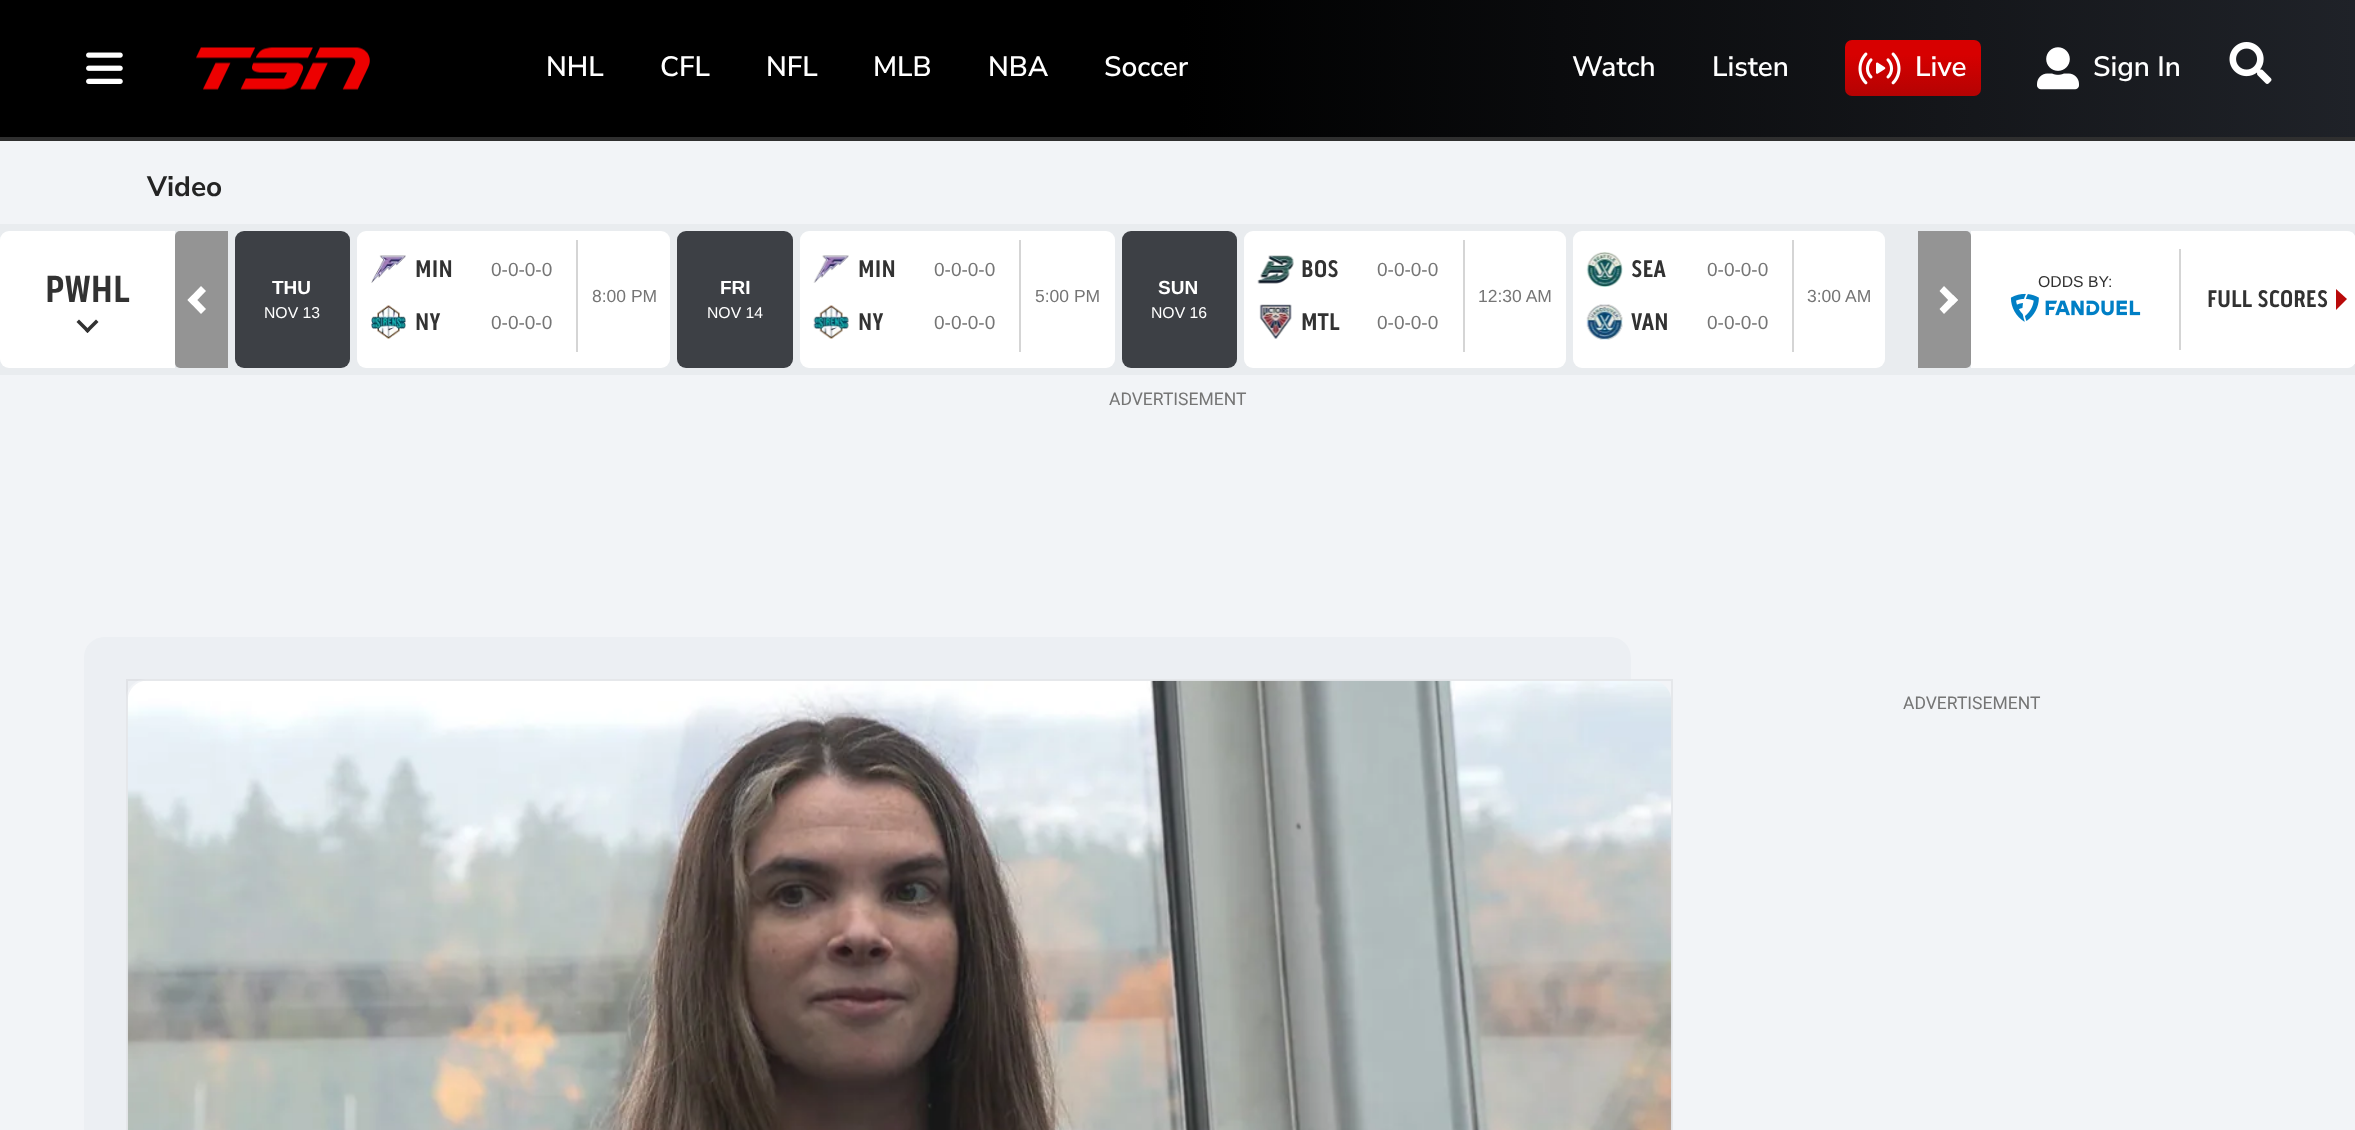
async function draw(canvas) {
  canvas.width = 2355
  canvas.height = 1130
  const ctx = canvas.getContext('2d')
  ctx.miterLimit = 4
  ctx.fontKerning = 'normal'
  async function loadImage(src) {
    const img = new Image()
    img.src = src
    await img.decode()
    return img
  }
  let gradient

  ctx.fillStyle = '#f2f4f7'
  ctx.fillRect(0, 0, 2355, 1130)
  gradient = ctx.createLinearGradient(0, 68, 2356, 68)
  gradient.addColorStop(0.5, '#000')
  gradient.addColorStop(1, '#1f2228')
  ctx.fillStyle = gradient
  ctx.fillRect(0, 0, 2355, 137)
  ctx.fillStyle = '#2f2f2f'
  ctx.fillRect(0, 137, 2355, 4)
  ctx.drawImage(await loadImage('image0.png'), 86, 52, 37, 32)
  ctx.drawImage(await loadImage('image1.png'), 196, 47, 174, 43)
  ctx.font = '600 28px Nunito Sans'
  ctx.fillStyle = '#fff'
  ctx.fillText('NHL', 546, 76)
  ctx.fillText('CFL', 660, 76)
  ctx.fillText('NFL', 766, 76)
  ctx.fillText('MLB', 873, 76)
  ctx.fillText('NBA', 988, 76)
  ctx.fillText('Soccer', 1104, 76)
  ctx.fillText('Watch', 1572, 76)
  ctx.fillText('Listen', 1712, 76)
  gradient = ctx.createLinearGradient(1913, 40, 1913, 136)
  gradient.addColorStop(0.15, '#d70000')
  gradient.addColorStop(1, '#920505')
  ctx.fillStyle = gradient
  ctx.beginPath()
  ctx.roundRect(1845, 40, 136, 56, 7)
  ctx.fill()
  ctx.drawImage(await loadImage('image2.png'), 1858, 52, 43, 33)
  ctx.fillStyle = '#fff'
  ctx.fillText('Live', 1915, 76)
  ctx.drawImage(await loadImage('image3.png'), 2037, 47, 42, 43)
  ctx.fillText('Sign In', 2093, 76)
  ctx.drawImage(await loadImage('image4.png'), 2229, 42, 43, 42)
  ctx.font = 'bold 28px Nunito Sans'
  ctx.fillStyle = '#242424'
  ctx.fillText('Video', 147, 196)
  ctx.fillStyle = '#e9ecef'
  ctx.fillRect(0, 224, 2355, 151)
  ctx.fillStyle = '#fff'
  ctx.beginPath()
  ctx.roundRect(0, 231, 175, 137, [9, 0, 0, 9])
  ctx.fill()
  ctx.font = 'bold 38.5px "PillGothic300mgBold"'
  ctx.fillStyle = '#323232'
  ctx.fillText('PWHL', 45, 302)
  ctx.beginPath()
  ctx.moveTo(98.5, 322)
  ctx.lineTo(87.5, 333)
  ctx.lineTo(85, 330.5)
  ctx.lineTo(96, 319.5)
  ctx.closePath()
  ctx.fill()
  ctx.beginPath()
  ctx.moveTo(90, 330.5)
  ctx.lineTo(87.5, 333)
  ctx.lineTo(76.5, 322)
  ctx.lineTo(79, 319.5)
  ctx.closePath()
  ctx.fill()
  ctx.fillStyle = '#949494'
  ctx.beginPath()
  ctx.roundRect(175, 231, 53, 137, [5, 0, 0, 5])
  ctx.fill()
  ctx.fillStyle = '#fff'
  ctx.beginPath()
  ctx.moveTo(201, 314)
  ctx.lineTo(187.5, 300)
  ctx.lineTo(192.5, 295)
  ctx.lineTo(206, 309)
  ctx.closePath()
  ctx.fill()
  ctx.beginPath()
  ctx.moveTo(192.5, 305)
  ctx.lineTo(187.5, 300)
  ctx.lineTo(201, 286)
  ctx.lineTo(206, 291)
  ctx.closePath()
  ctx.fill()
  ctx.fillStyle = '#3d4045'
  ctx.beginPath()
  ctx.roundRect(235, 231, 115, 137, 9)
  ctx.fill()
  ctx.font = 'bold 19px Liberation Sans'
  ctx.fillStyle = '#fff'
  ctx.fillText('THU', 272, 294)
  ctx.font = '15.75px Liberation Sans'
  ctx.fillText('NOV 13', 264, 318)
  ctx.beginPath()
  ctx.roundRect(357, 231, 313, 137, 9)
  ctx.fill()
  ctx.drawImage(await loadImage('image5.png'), 371, 255, 35, 28)
  ctx.font = 'bold 24.5px "PillGothic300mgBold"'
  ctx.fillStyle = '#323232'
  ctx.fillText('MIN', 415, 277)
  ctx.font = '19px Liberation Sans'
  ctx.fillStyle = '#757575'
  ctx.fillText('0-0-0-0', 491, 276)
  ctx.drawImage(await loadImage('image6.png'), 371, 305, 35, 34)
  ctx.font = 'bold 24.5px "PillGothic300mgBold"'
  ctx.fillStyle = '#323232'
  ctx.fillText('NY', 415, 330)
  ctx.font = '19px Liberation Sans'
  ctx.fillStyle = '#757575'
  ctx.fillText('0-0-0-0', 491, 329)
  ctx.fillStyle = '#d5d5d5'
  ctx.fillRect(576, 240, 2, 112)
  ctx.font = '17.5px Liberation Sans'
  ctx.fillStyle = '#757575'
  ctx.fillText('8:00 PM', 592, 302)
  ctx.fillStyle = '#3d4045'
  ctx.beginPath()
  ctx.roundRect(677, 231, 116, 137, 9)
  ctx.fill()
  ctx.font = 'bold 19px Liberation Sans'
  ctx.fillStyle = '#fff'
  ctx.fillText('FRI', 720, 294)
  ctx.font = '15.75px Liberation Sans'
  ctx.fillText('NOV 14', 707, 318)
  ctx.beginPath()
  ctx.roundRect(800, 231, 315, 137, 9)
  ctx.fill()
  ctx.drawImage(await loadImage('image7.png'), 813, 255, 36, 28)
  ctx.font = 'bold 24.5px "PillGothic300mgBold"'
  ctx.fillStyle = '#323232'
  ctx.fillText('MIN', 858, 277)
  ctx.font = '19px Liberation Sans'
  ctx.fillStyle = '#757575'
  ctx.fillText('0-0-0-0', 934, 276)
  ctx.drawImage(await loadImage('image8.png'), 813, 305, 36, 34)
  ctx.font = 'bold 24.5px "PillGothic300mgBold"'
  ctx.fillStyle = '#323232'
  ctx.fillText('NY', 858, 330)
  ctx.font = '19px Liberation Sans'
  ctx.fillStyle = '#757575'
  ctx.fillText('0-0-0-0', 934, 329)
  ctx.fillStyle = '#d5d5d5'
  ctx.fillRect(1019, 240, 2, 112)
  ctx.font = '17.5px Liberation Sans'
  ctx.fillStyle = '#757575'
  ctx.fillText('5:00 PM', 1035, 302)
  ctx.fillStyle = '#3d4045'
  ctx.beginPath()
  ctx.roundRect(1122, 231, 115, 137, 9)
  ctx.fill()
  ctx.font = 'bold 19px Liberation Sans'
  ctx.fillStyle = '#fff'
  ctx.fillText('SUN', 1158, 294)
  ctx.font = '15.75px Liberation Sans'
  ctx.fillText('NOV 16', 1151, 318)
  ctx.beginPath()
  ctx.roundRect(1244, 231, 322, 137, 9)
  ctx.fill()
  ctx.drawImage(await loadImage('image9.png'), 1257, 255, 37, 29)
  ctx.font = 'bold 24.5px "PillGothic300mgBold"'
  ctx.fillStyle = '#323232'
  ctx.fillText('BOS', 1301, 277)
  ctx.font = '19px Liberation Sans'
  ctx.fillStyle = '#757575'
  ctx.fillText('0-0-0-0', 1377, 276)
  ctx.drawImage(await loadImage('image10.png'), 1259, 304, 33, 35)
  ctx.font = 'bold 24.5px "PillGothic300mgBold"'
  ctx.fillStyle = '#323232'
  ctx.fillText('MTL', 1301, 330)
  ctx.font = '19px Liberation Sans'
  ctx.fillStyle = '#757575'
  ctx.fillText('0-0-0-0', 1377, 329)
  ctx.fillStyle = '#d5d5d5'
  ctx.fillRect(1463, 240, 2, 112)
  ctx.font = '17.5px Liberation Sans'
  ctx.fillStyle = '#757575'
  ctx.fillText('12:30 AM', 1478, 302)
  ctx.fillStyle = '#fff'
  ctx.beginPath()
  ctx.roundRect(1573, 231, 312, 137, 9)
  ctx.fill()
  ctx.drawImage(await loadImage('image11.png'), 1586, 252, 37, 35)
  ctx.font = 'bold 24.5px "PillGothic300mgBold"'
  ctx.fillStyle = '#323232'
  ctx.fillText('SEA', 1631, 277)
  ctx.font = '19px Liberation Sans'
  ctx.fillStyle = '#757575'
  ctx.fillText('0-0-0-0', 1707, 276)
  ctx.drawImage(await loadImage('image12.png'), 1586, 304, 37, 36)
  ctx.font = 'bold 24.5px "PillGothic300mgBold"'
  ctx.fillStyle = '#323232'
  ctx.fillText('VAN', 1631, 330)
  ctx.font = '19px Liberation Sans'
  ctx.fillStyle = '#757575'
  ctx.fillText('0-0-0-0', 1707, 329)
  ctx.fillStyle = '#d5d5d5'
  ctx.fillRect(1792, 240, 2, 112)
  ctx.font = '17.5px Liberation Sans'
  ctx.fillStyle = '#757575'
  ctx.fillText('3:00 AM', 1807, 302)
  ctx.fillStyle = '#949494'
  ctx.beginPath()
  ctx.roundRect(1918, 231, 53, 137, [0, 5, 5, 0])
  ctx.fill()
  ctx.fillStyle = '#fff'
  ctx.beginPath()
  ctx.moveTo(1944, 286)
  ctx.lineTo(1958, 300)
  ctx.lineTo(1953, 305)
  ctx.lineTo(1939.5, 291)
  ctx.closePath()
  ctx.fill()
  ctx.beginPath()
  ctx.moveTo(1953, 295)
  ctx.lineTo(1958, 300)
  ctx.lineTo(1944, 314)
  ctx.lineTo(1939.5, 309)
  ctx.closePath()
  ctx.fill()
  ctx.fillRect(1971, 231, 210, 137)
  ctx.font = '15.75px Liberation Sans'
  ctx.fillStyle = '#323232'
  ctx.fillText('ODDS BY:', 2038, 287)
  ctx.drawImage(await loadImage('image13.png'), 2010, 293, 131, 29)
  ctx.fillStyle = '#d5d5d5'
  ctx.fillRect(2179, 249, 2, 101)
  ctx.fillStyle = '#fff'
  ctx.beginPath()
  ctx.moveTo(2181, 231)
  ctx.lineTo(2347, 231)
  ctx.bezierCurveTo(2352, 231, 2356, 235, 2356, 240)
  ctx.lineTo(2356, 359)
  ctx.bezierCurveTo(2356, 364, 2352, 368, 2347, 368)
  ctx.lineTo(2181, 368)
  ctx.closePath()
  ctx.fill()
  ctx.font = 'bold 24.5px "PillGothic300mgBold"'
  ctx.fillStyle = '#323232'
  ctx.fillText('FULL SCORES', 2207, 307)
  ctx.fillStyle = '#b90a0a'
  ctx.beginPath()
  ctx.moveTo(2336, 310)
  ctx.lineTo(2336, 289)
  ctx.lineTo(2347, 299)
  ctx.closePath()
  ctx.fill()
  ctx.font = '17.5px Roboto'
  ctx.fillStyle = '#757575'
  ctx.fillText('ADVERTISEMENT', 1109, 405)
  ctx.fillStyle = '#eceff3'
  ctx.beginPath()
  ctx.moveTo(105, 637)
  ctx.bezierCurveTo(93, 637, 84, 646, 84, 658)
  ctx.lineTo(84, 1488)
  ctx.bezierCurveTo(84, 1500, 93, 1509, 105, 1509)
  ctx.lineTo(126, 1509)
  ctx.lineTo(126, 700)
  ctx.bezierCurveTo(126, 688, 135, 679, 147, 679)
  ctx.lineTo(1631, 679)
  ctx.lineTo(1631, 658)
  ctx.bezierCurveTo(1631, 646, 1622, 637, 1610, 637)
  ctx.closePath()
  ctx.fill()
  ctx.strokeStyle = '#2424240f'
  ctx.lineWidth = 2
  ctx.strokeRect(127, 680, 1545, 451)
  ctx.drawImage(await loadImage('image14.png'), 127, 680, 1545, 450)
  ctx.fillStyle = '#757575'
  ctx.fillText('ADVERTISEMENT', 1903, 709)
}

draw(document.querySelector('canvas'))
